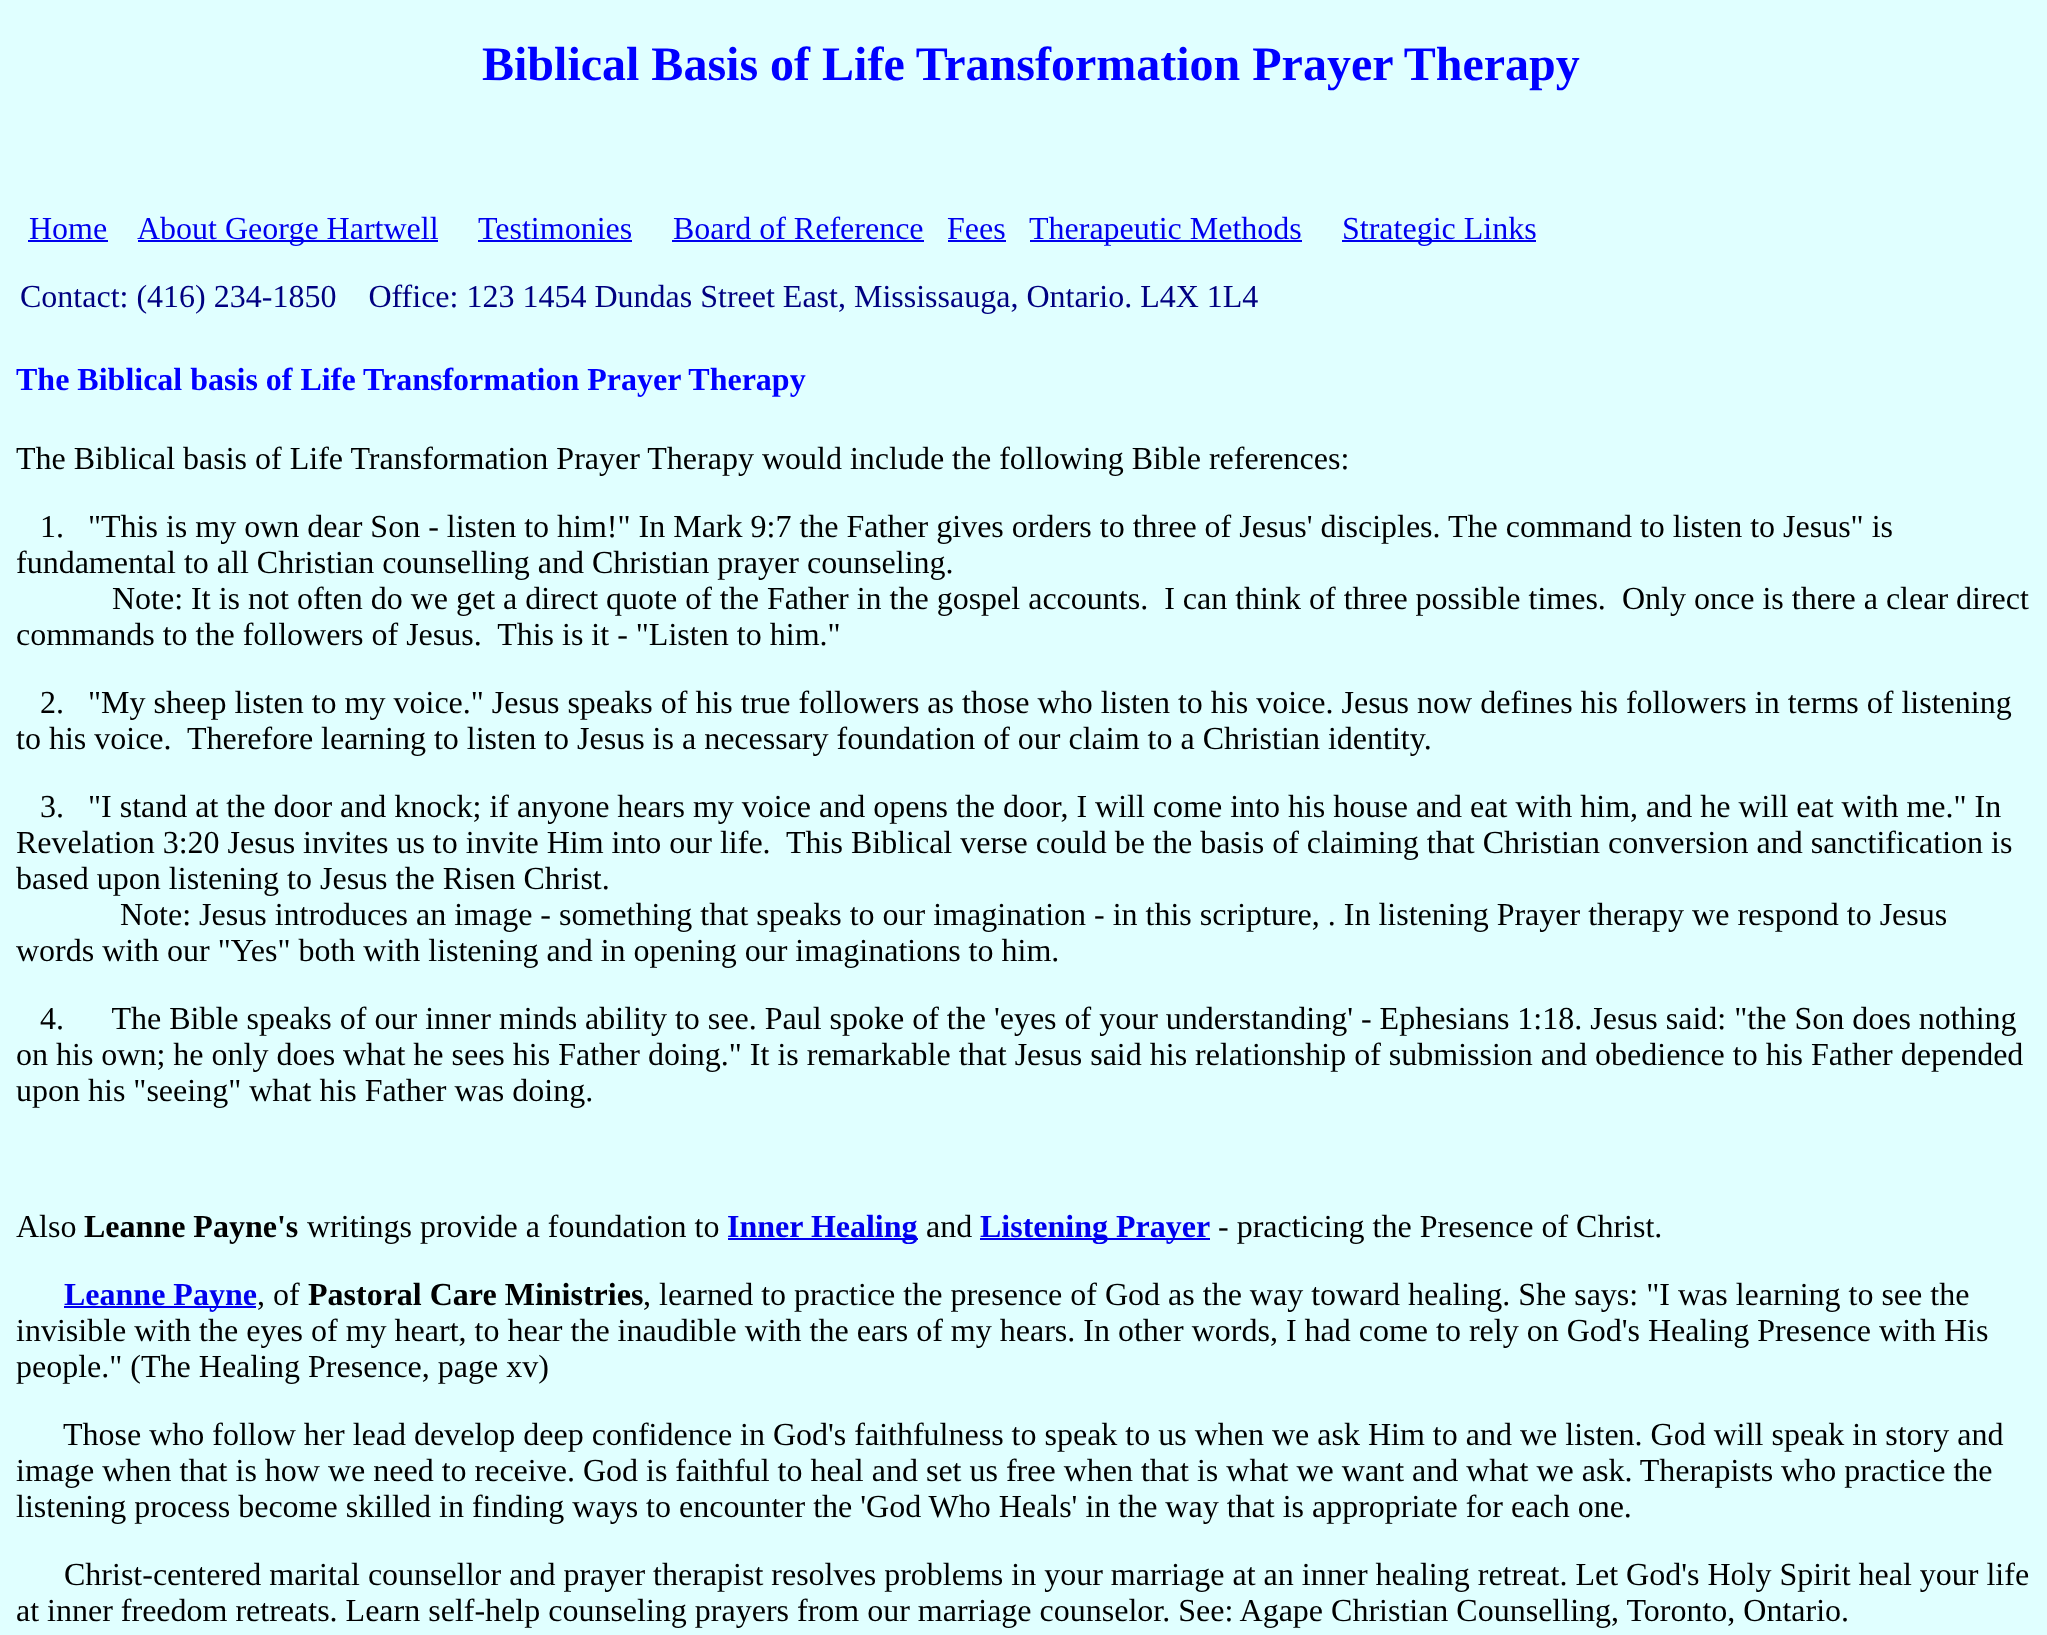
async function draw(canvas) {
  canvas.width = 2047
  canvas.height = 1635
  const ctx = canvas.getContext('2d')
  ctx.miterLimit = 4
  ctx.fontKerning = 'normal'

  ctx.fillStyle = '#e0ffff'
  ctx.fillRect(0, 0, 2047, 1635)
  ctx.font = 'bold 48px Liberation Serif'
  ctx.fillStyle = '#00f'
  ctx.fillText('Biblical Basis of Life Transformation Prayer Therapy', 482, 80)
  ctx.font = '32px Liberation Serif'
  ctx.fillStyle = '#00e'
  ctx.fillText('Home', 29, 239)
  ctx.fillRect(28, 240, 80, 2)
  ctx.fillRect(138, 240, 300, 2)
  ctx.fillText('About George Hartwell', 137, 239)
  ctx.fillText('Testimonies', 478, 239)
  ctx.fillRect(478, 240, 154, 2)
  ctx.fillText('Board of Reference', 673, 239)
  ctx.fillRect(672, 240, 252, 2)
  ctx.fillText('Fees', 947, 239)
  ctx.fillRect(948, 240, 58, 2)
  ctx.fillRect(1030, 240, 272, 2)
  ctx.fillText('Therapeutic Methods', 1029, 239)
  ctx.fillRect(1342, 240, 194, 2)
  ctx.fillText('Strategic Links', 1342, 239)
  ctx.fillStyle = '#000080'
  ctx.fillText('Contact: (416) 234-1850    Office: 123 1454 Dundas Street East, Mississauga, Ontario. L4X 1L4', 20, 307)
  ctx.font = 'bold 32px Liberation Serif'
  ctx.fillStyle = '#00f'
  ctx.fillText('The Biblical basis of Life', 16, 390)
  ctx.fillText('Transformation Prayer Therapy', 363, 390)
  ctx.font = '32px Liberation Serif'
  ctx.fillStyle = '#000'
  ctx.fillText('The Biblical basis of Life Transformation Prayer Therapy would include the following Bible references:', 16, 469)
  ctx.fillText('1.   "This is my own dear Son - listen to him!" In Mark 9:7 the Father gives orders to three of Jesus\' disciples. The command to listen to Jesus" is', 40, 537)
  ctx.fillText('fundamental to all Christian counselling and Christian prayer counseling.', 16, 573)
  ctx.fillText('Note: It is not often do we get a direct quote of the Father in the gospel accounts.  I can think of three possible times.', 112, 609)
  ctx.fillText('Only once is there a clear direct', 1622, 609)
  ctx.fillText('commands to the followers of Jesus.  This is it - "Listen to him."', 16, 645)
  ctx.fillText('2.   "My sheep listen to my voice." Jesus speaks of his true followers as those who listen to his voice. Jesus now defines his followers in terms of listening', 40, 713)
  ctx.fillText('to his voice.  Therefore learning to listen to Jesus is a necessary foundation of our claim to a Christian identity.', 16, 749)
  ctx.fillText('3.   "I stand at the door and knock; if anyone hears my voice and opens the door, I will come into his house and eat with him, and he will eat with me." In', 40, 817)
  ctx.fillText('Revelation 3:20 Jesus invites us to invite Him into our life.  This Biblical verse could be the basis of claiming that Christian conversion and sanctification is', 16, 853)
  ctx.fillText('based upon listening to Jesus the Risen Christ.', 16, 889)
  ctx.fillText('Note: Jesus introduces an image - something that speaks to our imagination - in this scripture, . In listening Prayer therapy we respond to Jesus', 120, 925)
  ctx.fillText('words with our "Yes" both with listening and in opening our imaginations to him.', 16, 961)
  ctx.fillText('4.      The Bible speaks of our inner minds ability to see. Paul spoke of the \'eyes of your understanding\' - Ephesians 1:18. Jesus said: "the Son does nothing', 40, 1029)
  ctx.fillText('on his own; he only does what he sees his Father doing." It is remarkable that Jesus said his relationship of submission and obedience to his Father depended', 16, 1065)
  ctx.fillText('upon his "seeing" what his Father was doing.', 16, 1101)
  ctx.fillText('Also', 16, 1237)
  ctx.font = 'bold 32px Liberation Serif'
  ctx.fillText('Leanne Payne\'s', 84, 1237)
  ctx.font = '32px Liberation Serif'
  ctx.fillText('writings provide a foundation to', 307, 1237)
  ctx.fillStyle = '#00e'
  ctx.fillRect(728, 1238, 190, 2)
  ctx.font = 'bold 32px Liberation Serif'
  ctx.fillText('Inner Healing', 727, 1237)
  ctx.font = '32px Liberation Serif'
  ctx.fillStyle = '#000'
  ctx.fillText('and', 926, 1237)
  ctx.fillStyle = '#00e'
  ctx.fillRect(980, 1238, 230, 2)
  ctx.font = 'bold 32px Liberation Serif'
  ctx.fillText('Listening Prayer', 980, 1237)
  ctx.font = '32px Liberation Serif'
  ctx.fillStyle = '#000'
  ctx.fillText('- practicing the Presence of Christ.', 1218, 1237)
  ctx.fillStyle = '#00e'
  ctx.fillRect(64, 1306, 192, 2)
  ctx.font = 'bold 32px Liberation Serif'
  ctx.fillText('Leanne Payne', 64, 1305)
  ctx.font = '32px Liberation Serif'
  ctx.fillStyle = '#000'
  ctx.fillText(', of', 257, 1305)
  ctx.font = 'bold 32px Liberation Serif'
  ctx.fillText('Pastoral Care Ministries', 308, 1305)
  ctx.font = '32px Liberation Serif'
  ctx.fillText(', learned to practice the presence of God as the way toward healing. She says: "I was learning to see the', 643, 1305)
  ctx.fillText('invisible with the eyes of my heart, to hear the inaudible with the ears of my hears. In other words, I had come to rely on God\'s Healing Presence with His', 16, 1341)
  ctx.fillText('people." (The Healing Presence, page xv)', 16, 1377)
  ctx.fillText('Those who follow her lead develop deep confidence in God\'s faithfulness to speak to us when we ask Him to and we listen. God will speak in story and', 63, 1445)
  ctx.fillText('image when that is how we need to receive. God is faithful to heal and set us free when that is what we want and what we ask. Therapists who practice the', 16, 1481)
  ctx.fillText('listening process become skilled in finding ways to encounter the \'God Who Heals\' in the way that is appropriate for each one.', 16, 1517)
  ctx.fillText('Christ-centered marital counsellor and prayer therapist resolves problems in your marriage at an inner healing retreat. Let God\'s Holy Spirit heal your life', 64, 1585)
  ctx.fillText('at inner freedom retreats. Learn self-help counseling prayers from our marriage counselor. See: Agape Christian Counselling, Toronto, Ontario.', 16, 1621)
}

draw(document.querySelector('canvas'))
